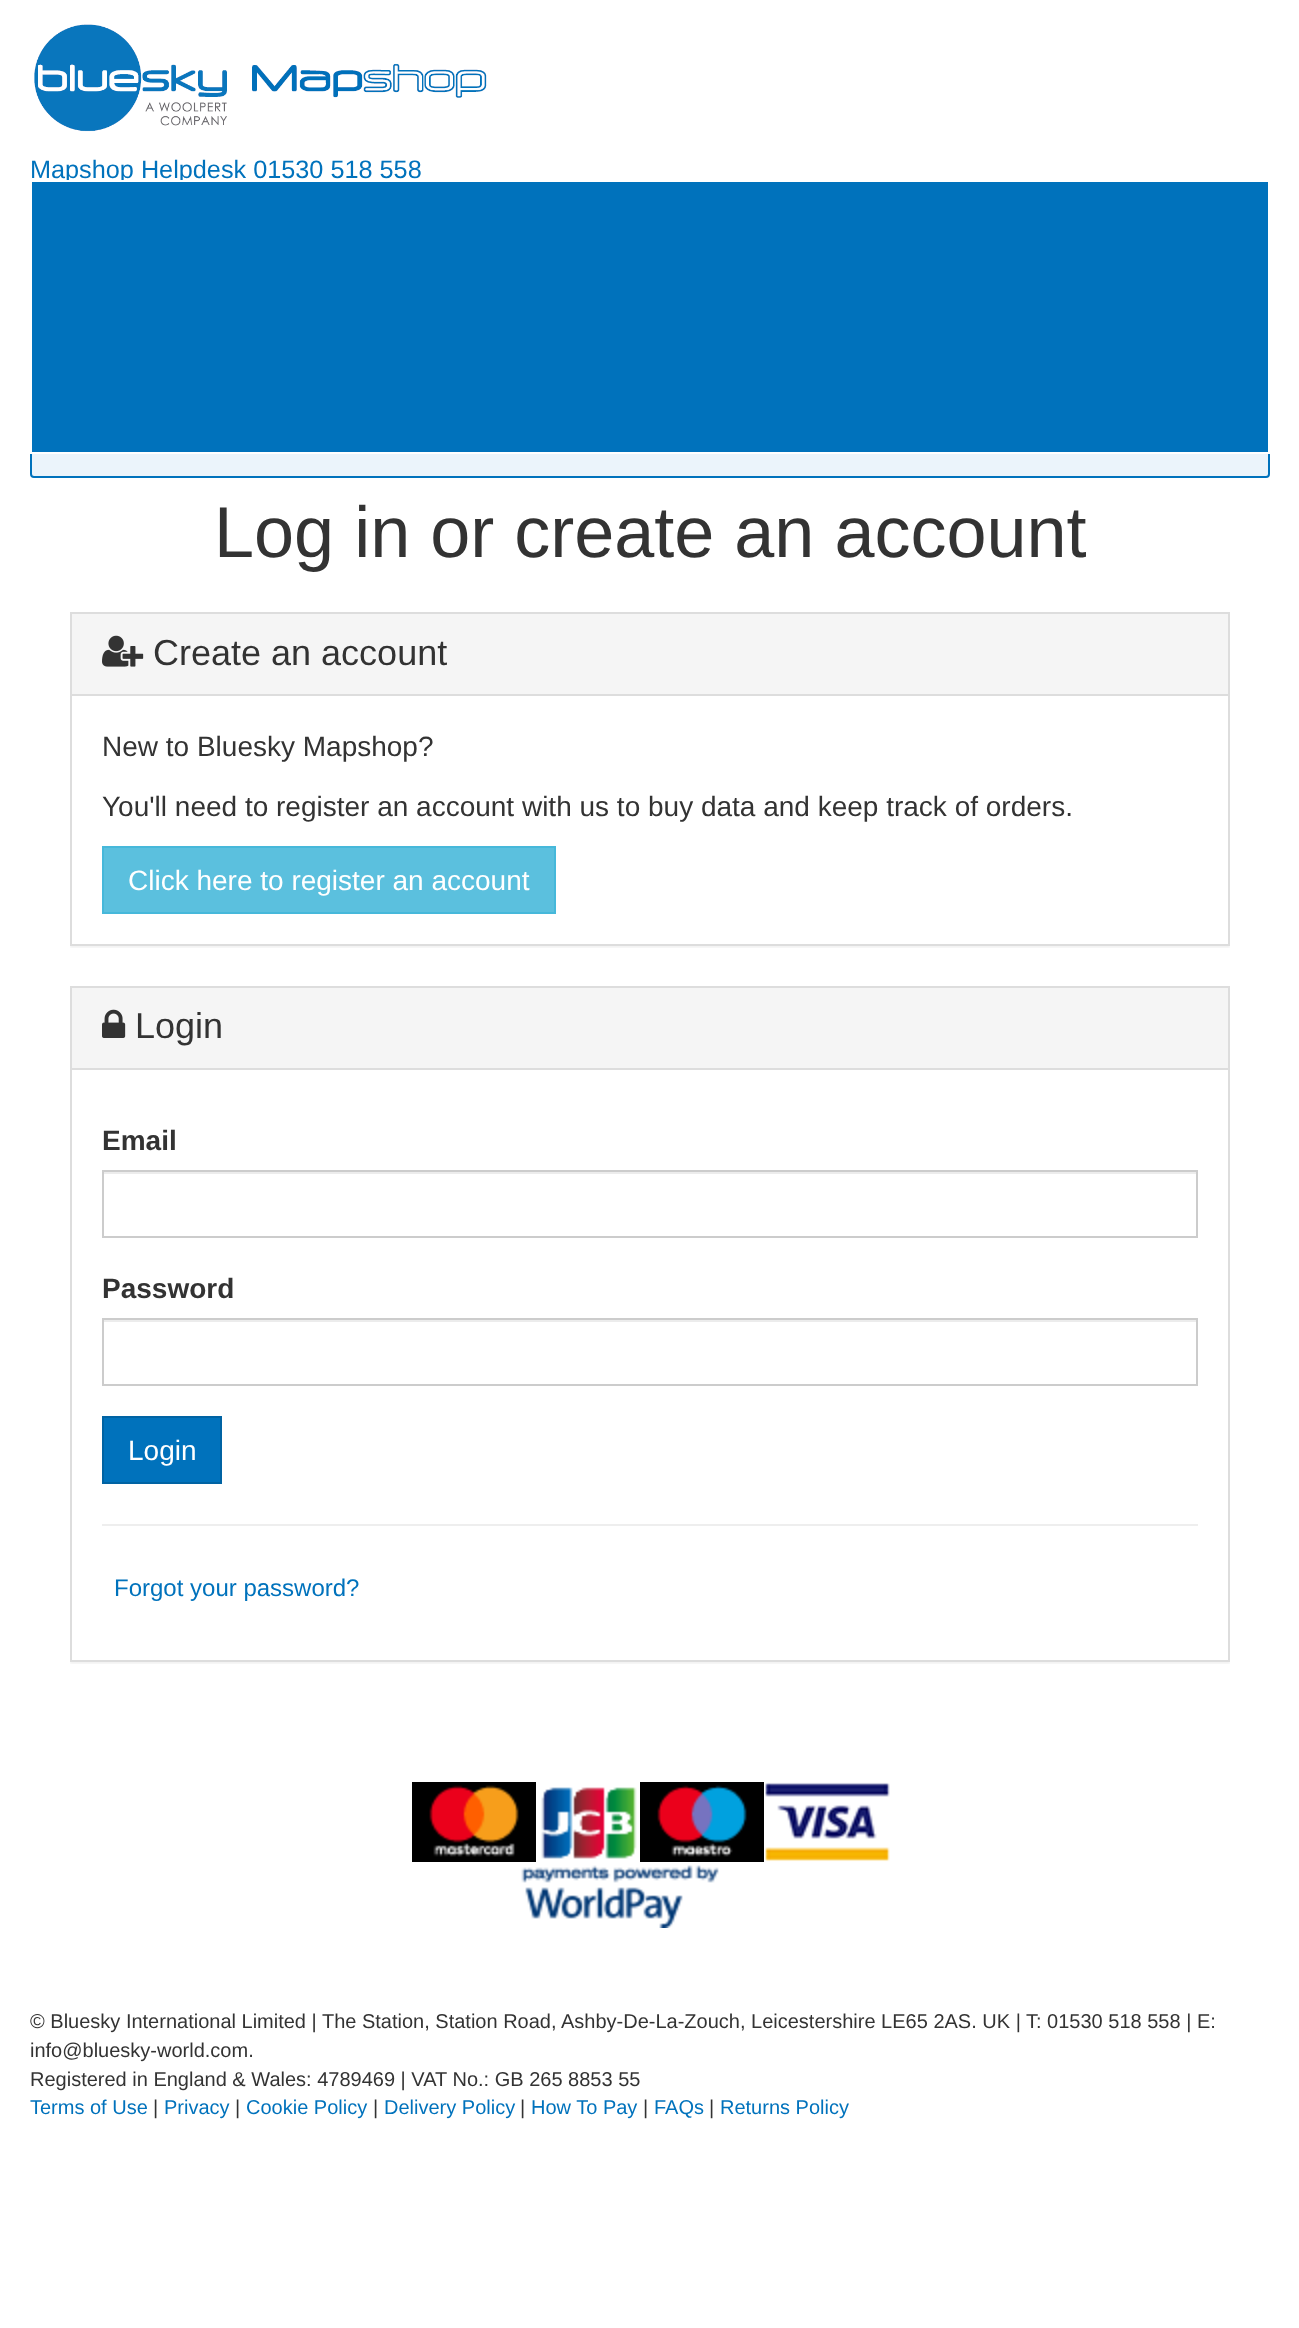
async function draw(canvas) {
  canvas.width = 1299
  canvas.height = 2328
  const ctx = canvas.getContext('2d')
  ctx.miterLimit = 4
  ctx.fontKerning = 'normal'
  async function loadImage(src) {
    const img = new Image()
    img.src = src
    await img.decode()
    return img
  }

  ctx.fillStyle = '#fff'
  ctx.fillRect(0, 0, 1299, 2328)
  ctx.drawImage(await loadImage('image0.png'), 34, 24, 453, 108)
  ctx.font = '25.25px Liberation Sans'
  ctx.fillStyle = '#0072bc'
  ctx.fillText('Mapshop Helpdesk 01530 518 558', 30, 178)
  ctx.fillStyle = '#ebf4fb'
  ctx.beginPath()
  ctx.roundRect(31, 387, 1238, 90, 3)
  ctx.fill()
  ctx.strokeStyle = '#0072bc'
  ctx.lineWidth = 2
  ctx.stroke()
  ctx.fillStyle = '#0072bc'
  ctx.beginPath()
  ctx.rect(31, 181, 1238, 272)
  ctx.fill()
  ctx.strokeStyle = '#fff'
  ctx.stroke()
  ctx.font = '72px Liberation Sans'
  ctx.fillStyle = '#333'
  ctx.fillText('Log in or create an account', 214, 557)
  ctx.save()
  ctx.beginPath()
  ctx.rect(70, 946, 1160, 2)
  ctx.clip()
  ctx.fillStyle = '#0000000d'
  ctx.filter = 'blur(1px)'
  ctx.beginPath()
  ctx.rect(70, 614, 1160, 334)
  ctx.fill()
  ctx.filter = 'none'
  ctx.restore()
  ctx.strokeStyle = '#ddd'
  ctx.strokeRect(71, 613, 1158, 332)
  ctx.fillStyle = '#f5f5f5'
  ctx.fillRect(72, 614, 1156, 80)
  ctx.fillStyle = '#ddd'
  ctx.fillRect(72, 694, 1156, 2)
  ctx.drawImage(await loadImage('image1.png'), 102, 635, 42, 32)
  ctx.font = '36px Liberation Sans'
  ctx.fillStyle = '#333'
  ctx.fillText('Create an account', 153, 665)
  ctx.font = '28px Liberation Sans'
  ctx.fillText('New to Bluesky Mapshop?', 102, 756)
  ctx.fillText('You\'ll need to register an account with us to buy data and keep track of orders.', 102, 816)
  ctx.fillStyle = '#5bc0de'
  ctx.beginPath()
  ctx.rect(103, 847, 452, 66)
  ctx.fill()
  ctx.strokeStyle = '#46b8da'
  ctx.stroke()
  ctx.fillStyle = '#fff'
  ctx.fillText('Click here to register an account', 128, 890)
  ctx.save()
  ctx.beginPath()
  ctx.rect(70, 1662, 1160, 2)
  ctx.clip()
  ctx.fillStyle = '#0000000d'
  ctx.filter = 'blur(1px)'
  ctx.beginPath()
  ctx.rect(70, 988, 1160, 676)
  ctx.fill()
  ctx.filter = 'none'
  ctx.restore()
  ctx.strokeStyle = '#ddd'
  ctx.strokeRect(71, 987, 1158, 674)
  ctx.fillStyle = '#f5f5f5'
  ctx.fillRect(72, 988, 1156, 80)
  ctx.fillStyle = '#ddd'
  ctx.fillRect(72, 1068, 1156, 2)
  ctx.drawImage(await loadImage('image2.png'), 102, 1009, 24, 29)
  ctx.font = '36px Liberation Sans'
  ctx.fillStyle = '#333'
  ctx.fillText('Login', 135, 1038)
  ctx.font = 'bold 28px Liberation Sans'
  ctx.fillText('Email', 102, 1150)
  ctx.fillStyle = '#ececec'
  ctx.fillRect(104, 1172, 1092, 2)
  ctx.strokeStyle = '#ccc'
  ctx.strokeRect(103, 1171, 1094, 66)
  ctx.fillStyle = '#333'
  ctx.fillText('Password', 102, 1298)
  ctx.fillStyle = '#ececec'
  ctx.fillRect(104, 1320, 1092, 2)
  ctx.strokeRect(103, 1319, 1094, 66)
  ctx.fillStyle = '#0072bc'
  ctx.beginPath()
  ctx.rect(103, 1417, 118, 66)
  ctx.fill()
  ctx.strokeStyle = '#0063a3'
  ctx.stroke()
  ctx.font = '28px Liberation Sans'
  ctx.fillStyle = '#fff'
  ctx.fillText('Login', 128, 1460)
  ctx.fillStyle = '#eee'
  ctx.fillRect(102, 1524, 1096, 2)
  ctx.font = '24px Liberation Sans'
  ctx.fillStyle = '#0072bc'
  ctx.fillText('Forgot your password?', 114, 1596)
  ctx.drawImage(await loadImage('image3.png'), 412, 1782, 124, 80)
  ctx.drawImage(await loadImage('image4.png'), 541, 1787, 96, 72)
  ctx.drawImage(await loadImage('image5.png'), 640, 1782, 124, 80)
  ctx.drawImage(await loadImage('image6.png'), 765, 1782, 125, 80)
  ctx.drawImage(await loadImage('image7.png'), 521, 1865, 198, 63)
  ctx.font = '20px Liberation Sans'
  ctx.fillStyle = '#333'
  ctx.fillText('© Bluesky International Limited | The Station, Station Road, Ashby-De-La-Zouch, Leicestershire LE65 2AS. UK |', 30, 2028)
  ctx.fillText('T: 01530 518 558 | E:', 1026, 2028)
  ctx.fillText('info@bluesky-world.com.', 30, 2057)
  ctx.fillText('Registered in England & Wales: 4789469 | VAT No.: GB 265 8853 55', 30, 2086)
  ctx.fillStyle = '#0072bc'
  ctx.fillText('Terms of Use', 30, 2114)
  ctx.fillStyle = '#333'
  ctx.fillText('|', 153, 2114)
  ctx.fillStyle = '#0072bc'
  ctx.fillText('Privacy', 164, 2114)
  ctx.fillStyle = '#333'
  ctx.fillText('|', 235, 2114)
  ctx.fillStyle = '#0072bc'
  ctx.fillText('Cookie Policy', 246, 2114)
  ctx.fillStyle = '#333'
  ctx.fillText('|', 373, 2114)
  ctx.fillStyle = '#0072bc'
  ctx.fillText('Delivery Policy', 384, 2114)
  ctx.fillStyle = '#333'
  ctx.fillText('|', 520, 2114)
  ctx.fillStyle = '#0072bc'
  ctx.fillText('How To Pay', 531, 2114)
  ctx.fillStyle = '#333'
  ctx.fillText('|', 643, 2114)
  ctx.fillStyle = '#0072bc'
  ctx.fillText('FAQs', 654, 2114)
  ctx.fillStyle = '#333'
  ctx.fillText('|', 709, 2114)
  ctx.fillStyle = '#0072bc'
  ctx.fillText('Returns Policy', 720, 2114)
}

draw(document.querySelector('canvas'))
